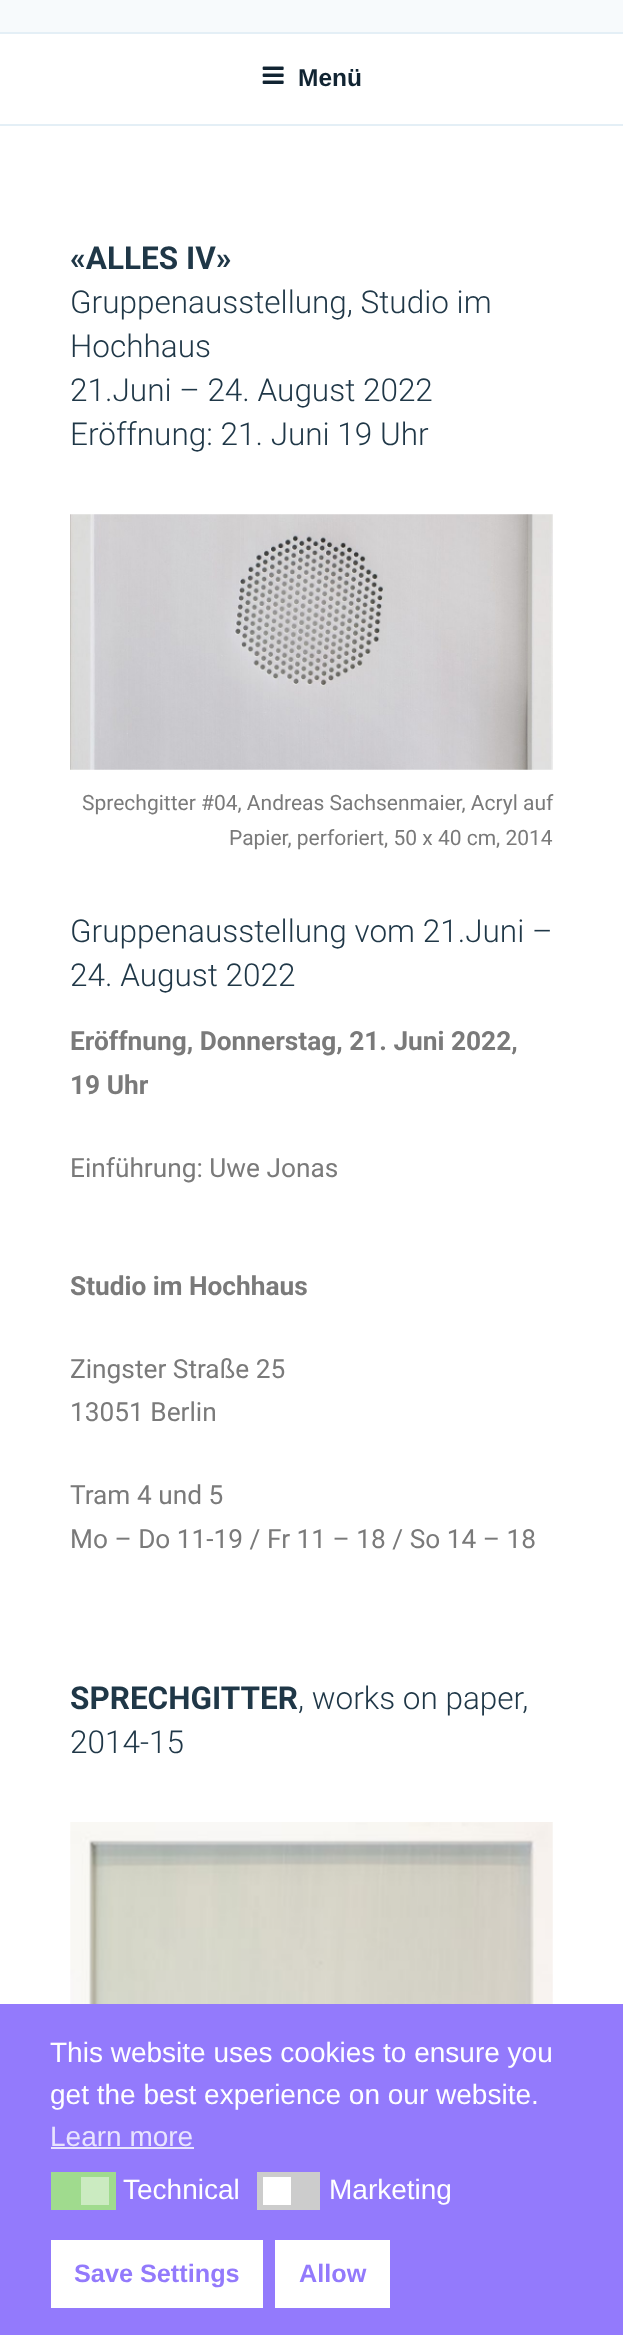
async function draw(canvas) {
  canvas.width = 623
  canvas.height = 2335
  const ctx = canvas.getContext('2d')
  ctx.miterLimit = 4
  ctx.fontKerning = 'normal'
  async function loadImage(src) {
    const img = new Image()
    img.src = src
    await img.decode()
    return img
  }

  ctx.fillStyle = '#fff'
  ctx.fillRect(0, 0, 623, 2335)
  ctx.fillStyle = '#f7fafc'
  ctx.fillRect(0, 0, 623, 32)
  ctx.fillStyle = '#e4eff6'
  ctx.fillRect(0, 32, 623, 2)
  ctx.fillRect(0, 124, 623, 2)
  ctx.drawImage(await loadImage('image0.png'), 262, 66, 22, 18)
  ctx.font = 'bold 24.5px Liberation Sans'
  ctx.fillStyle = '#112432'
  ctx.fillText('Menü', 298, 86)
  ctx.font = 'bold 31.5px Roboto'
  ctx.fillStyle = '#1f3747'
  ctx.fillText('«ALLES IV»', 70, 269)
  ctx.font = '300 31.5px Roboto'
  ctx.fillText('Gruppenausstellung, Studio im', 70, 313)
  ctx.fillText('Hochhaus', 70, 357)
  ctx.fillText('21.Juni – 24. August 2022', 70, 401)
  ctx.fillText('Eröffnung: 21. Juni 19 Uhr', 70, 445)
  ctx.drawImage(await loadImage('image1.png'), 70, 514, 483, 256)
  ctx.font = '21px Roboto'
  ctx.fillStyle = '#7a7a7a'
  ctx.fillText('Sprechgitter #04, Andreas Sachsenmaier, Acryl auf', 82, 810)
  ctx.fillText('Papier, perforiert, 50 x 40 cm, 2014', 229, 845)
  ctx.font = '300 31.5px Roboto'
  ctx.fillStyle = '#1f3747'
  ctx.fillText('Gruppenausstellung vom 21.Juni –', 70, 942)
  ctx.fillText('24. August 2022', 70, 986)
  ctx.font = 'bold 26.25px Roboto'
  ctx.fillStyle = '#7a7a7a'
  ctx.fillText('Eröffnung, Donnerstag, 21. Juni 2022,', 70, 1050)
  ctx.fillText('19 Uhr', 70, 1094)
  ctx.font = '26.25px Roboto'
  ctx.fillText('Einführung: Uwe Jonas', 70, 1177)
  ctx.font = 'bold 26.25px Roboto'
  ctx.fillText('Studio im Hochhaus', 70, 1295)
  ctx.font = '26.25px Roboto'
  ctx.fillText('Zingster Straße 25', 70, 1378)
  ctx.fillText('13051 Berlin', 70, 1421)
  ctx.fillText('Tram 4 und 5', 70, 1504)
  ctx.fillText('Mo – Do 11-19 / Fr 11 – 18 / So 14 – 18', 70, 1548)
  ctx.font = 'bold 31.5px Roboto'
  ctx.fillStyle = '#1f3747'
  ctx.fillText('SPRECHGITTER', 70, 1709)
  ctx.font = '300 31.5px Roboto'
  ctx.fillText(', works on paper,', 298, 1709)
  ctx.fillText('2014-15', 70, 1753)
  ctx.drawImage(await loadImage('image2.png'), 70, 1822, 483, 182)
  ctx.fillStyle = '#937afc'
  ctx.fillRect(0, 2004, 623, 331)
  ctx.font = '28px Liberation Sans'
  ctx.fillStyle = '#fff'
  ctx.fillText('This website uses cookies to ensure you', 50, 2062)
  ctx.fillText('get the best experience on our website.', 50, 2104)
  ctx.fillStyle = '#e9e4fe'
  ctx.fillText('Learn more', 50, 2146)
  ctx.fillRect(51, 2147, 143, 2)
  ctx.fillStyle = '#a0db8e'
  ctx.fillRect(51, 2172, 65, 38)
  ctx.fillStyle = '#cbebc1'
  ctx.fillRect(81, 2177, 28, 28)
  ctx.fillStyle = '#fff'
  ctx.fillText('Technical', 123, 2199)
  ctx.fillStyle = '#ccc'
  ctx.fillRect(257, 2172, 63, 38)
  ctx.fillStyle = '#fff'
  ctx.fillRect(263, 2177, 28, 28)
  ctx.fillText('Marketing', 329, 2199)
  ctx.fillRect(51, 2240, 212, 68)
  ctx.font = 'bold 25.25px Liberation Sans'
  ctx.fillStyle = '#937afc'
  ctx.fillText('Save Settings', 74, 2282)
  ctx.fillStyle = '#fff'
  ctx.fillRect(275, 2240, 115, 68)
  ctx.fillStyle = '#937afc'
  ctx.fillText('Allow', 299, 2282)
}

draw(document.querySelector('canvas'))
